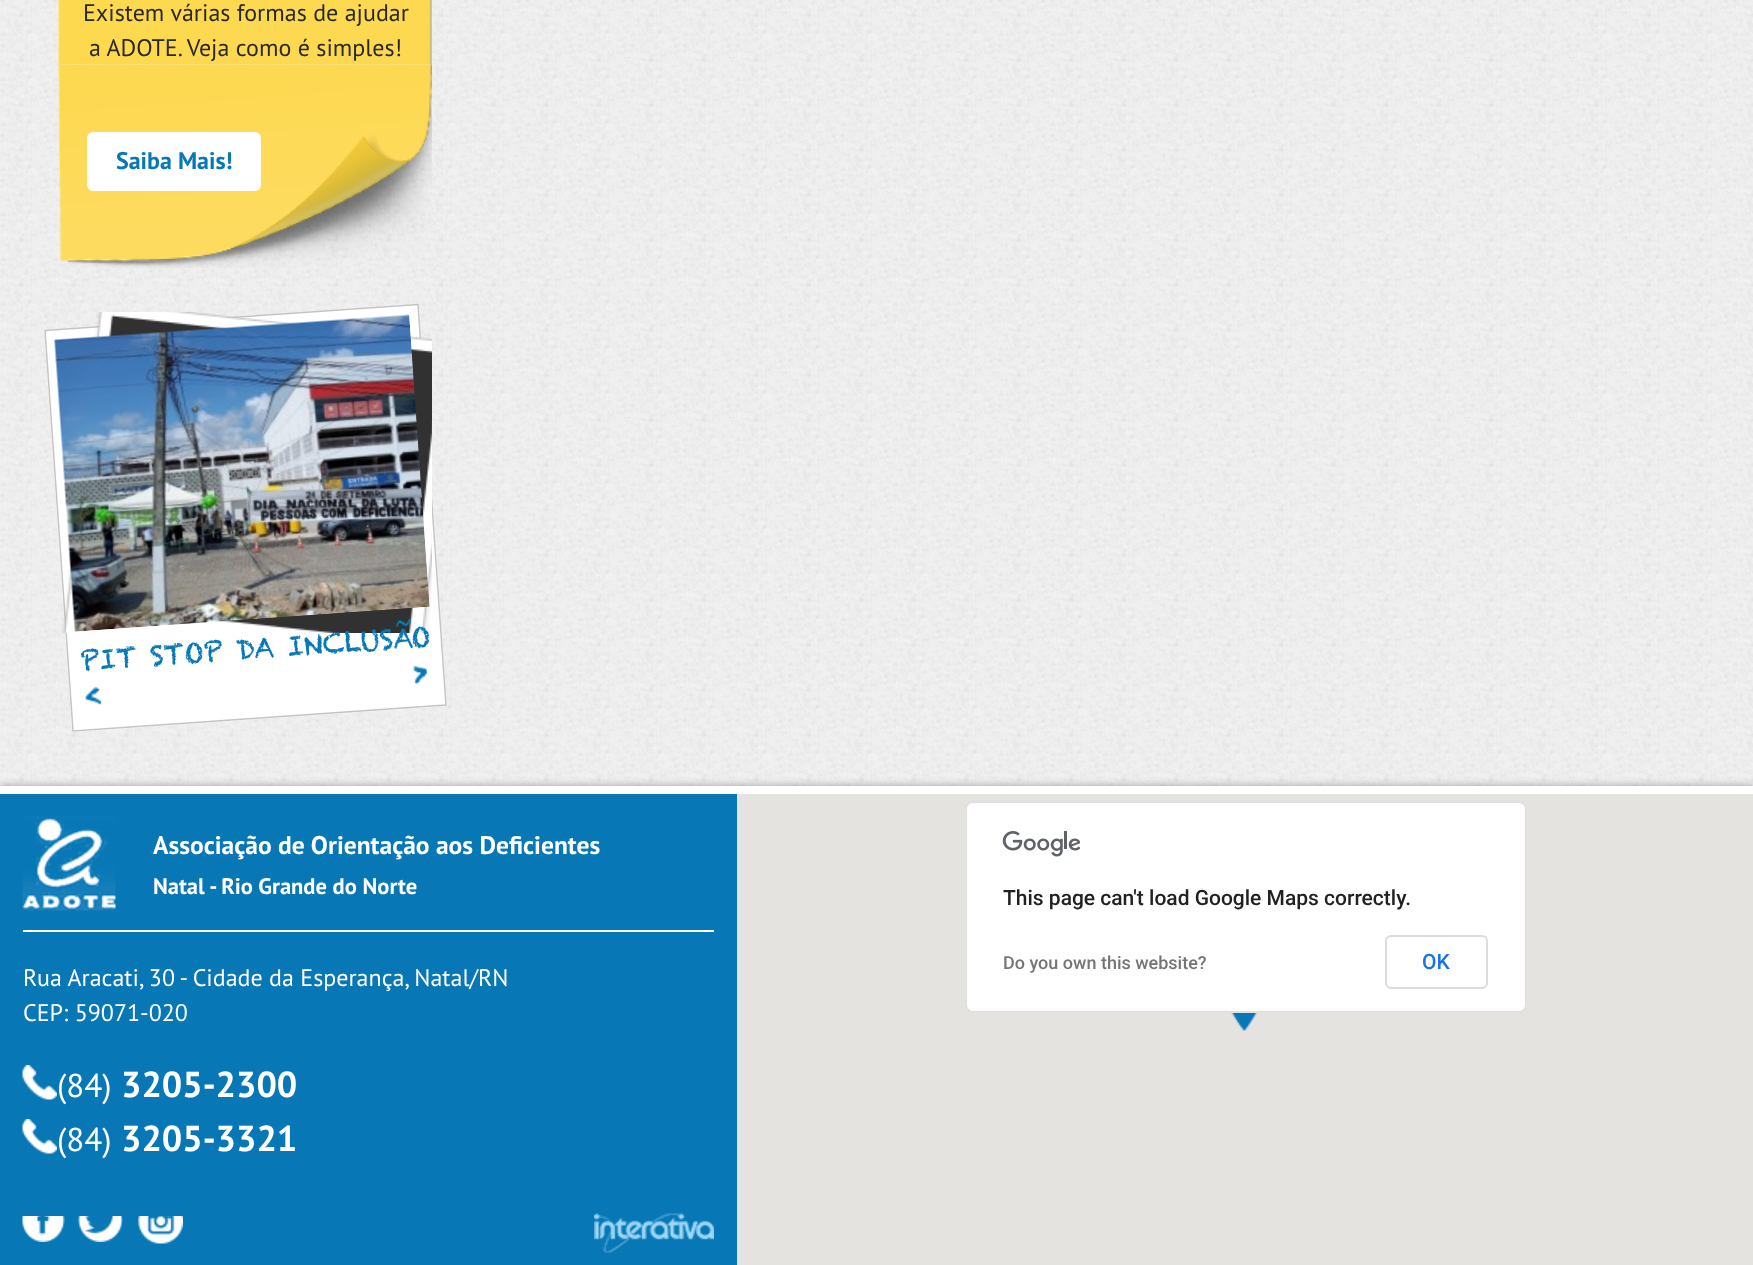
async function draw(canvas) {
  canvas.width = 1753
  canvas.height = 1265
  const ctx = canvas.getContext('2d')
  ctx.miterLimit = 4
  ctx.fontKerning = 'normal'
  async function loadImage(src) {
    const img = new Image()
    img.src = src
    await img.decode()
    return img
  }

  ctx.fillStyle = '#fff'
  ctx.fillRect(0, 0, 1753, 1265)
  ctx.drawImage(await loadImage('image0.png'), 0, 0, 1753, 786)
  ctx.drawImage(await loadImage('image2.png'), 57, 64, 375, 204)
  ctx.drawImage(await loadImage('image1.png'), 57, 0, 375, 65)
  ctx.font = '24px PT Sans'
  ctx.fillStyle = '#292929'
  ctx.fillText('Existem várias formas de ajudar', 83, 21)
  ctx.fillText('a ADOTE. Veja como é simples!', 89, 56)
  ctx.fillStyle = '#fff'
  ctx.beginPath()
  ctx.roundRect(87, 132, 174, 59, 6)
  ctx.fill()
  ctx.font = 'bold 24px PT Sans'
  ctx.fillStyle = '#0777b6'
  ctx.fillText('Saiba Mais!', 116, 169)
  ctx.fillStyle = '#fff'
  ctx.beginPath()
  ctx.moveTo(44, 330)
  ctx.lineTo(419, 304)
  ctx.lineTo(447, 706)
  ctx.lineTo(72, 732)
  ctx.closePath()
  ctx.fill()
  ctx.beginPath()
  ctx.moveTo(45, 330.5)
  ctx.lineTo(418, 304.5)
  ctx.lineTo(446, 705)
  ctx.lineTo(73, 731)
  ctx.closePath()
  ctx.strokeStyle = '#c4c4c4'
  ctx.lineWidth = 1.5
  ctx.stroke()
  ctx.drawImage(await loadImage('image3.png'), 54, 312, 378, 321)
  ctx.font = '27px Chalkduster'
  ctx.fillStyle = '#0777b6'
  ctx.save()
  ctx.translate(81, 670)
  ctx.rotate(-4 * Math.PI / 180)
  ctx.fillText('PIT STOP DA INCLUSÃO', 0, 0)
  ctx.restore()
  ctx.drawImage(await loadImage('image4.png'), 412, 665, 15, 20)
  ctx.drawImage(await loadImage('image5.png'), 85, 687, 17, 18)
  ctx.fillStyle = '#00000057'
  ctx.filter = 'blur(4px)'
  ctx.beginPath()
  ctx.rect(0, 786, 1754, 8)
  ctx.fill()
  ctx.filter = 'none'
  ctx.fillStyle = '#fff'
  ctx.fillRect(0, 786, 1753, 8)
  ctx.fillStyle = '#0777b6'
  ctx.fillRect(0, 794, 737, 471)
  ctx.drawImage(await loadImage('image6.png'), 22, 816, 94, 95)
  ctx.font = 'bold 25.5px PT Sans'
  ctx.fillStyle = '#fff'
  ctx.fillText('Associação de Orientação aos Deficientes', 153, 854)
  ctx.font = 'bold 22.5px PT Sans'
  ctx.fillText('Natal - Rio Grande do Norte', 153, 894)
  ctx.fillRect(23, 930, 691, 2)
  ctx.font = '24px PT Sans'
  ctx.fillText('Rua Aracati, 30 - Cidade da Esperança, Natal/RN', 23, 986)
  ctx.fillText('CEP: 59071-020', 23, 1021)
  ctx.drawImage(await loadImage('image7.png'), 22, 1065, 35, 35)
  ctx.font = '33px PT Sans'
  ctx.fillText('(84)', 57, 1097)
  ctx.font = 'bold 36px PT Sans'
  ctx.fillText('3205-2300', 121, 1097)
  ctx.drawImage(await loadImage('image7.png'), 22, 1119, 35, 35)
  ctx.font = '33px PT Sans'
  ctx.fillText('(84)', 57, 1151)
  ctx.font = 'bold 36px PT Sans'
  ctx.fillText('3205-3321', 121, 1151)
  ctx.drawImage(await loadImage('image8.png'), 22, 1216, 43, 26)
  ctx.drawImage(await loadImage('image9.png'), 78, 1216, 45, 26)
  ctx.drawImage(await loadImage('image10.png'), 138, 1216, 45, 28)
  ctx.drawImage(await loadImage('image11.png'), 594, 1213, 120, 40)
  ctx.fillStyle = '#e5e3df'
  ctx.fillRect(737, 794, 1016, 471)
  ctx.drawImage(await loadImage('image12.png'), 1231, 1013, 27, 18)
  ctx.fillStyle = '#fff'
  ctx.beginPath()
  ctx.roundRect(965, 801, 562, 212, 8)
  ctx.fill()
  ctx.beginPath()
  ctx.roundRect(966, 802, 560, 210, 7)
  ctx.strokeStyle = '#0000001f'
  ctx.lineWidth = 2
  ctx.stroke()
  ctx.drawImage(await loadImage('image13.png'), 1002, 831, 78, 26)
  ctx.font = '500 21px Roboto'
  ctx.fillStyle = '#212121'
  ctx.fillText('This page can\'t load Google Maps correctly.', 1003, 905)
  ctx.font = '500 18px Roboto'
  ctx.fillStyle = '#757575'
  ctx.fillText('Do you own this website?', 1003, 969)
  ctx.beginPath()
  ctx.roundRect(1386, 936, 101, 52, 5)
  ctx.strokeStyle = '#dadce0'
  ctx.stroke()
  ctx.font = '500 21px Roboto'
  ctx.fillStyle = '#1a73e8'
  ctx.fillText('OK', 1422, 969)
}

draw(document.querySelector('canvas'))
